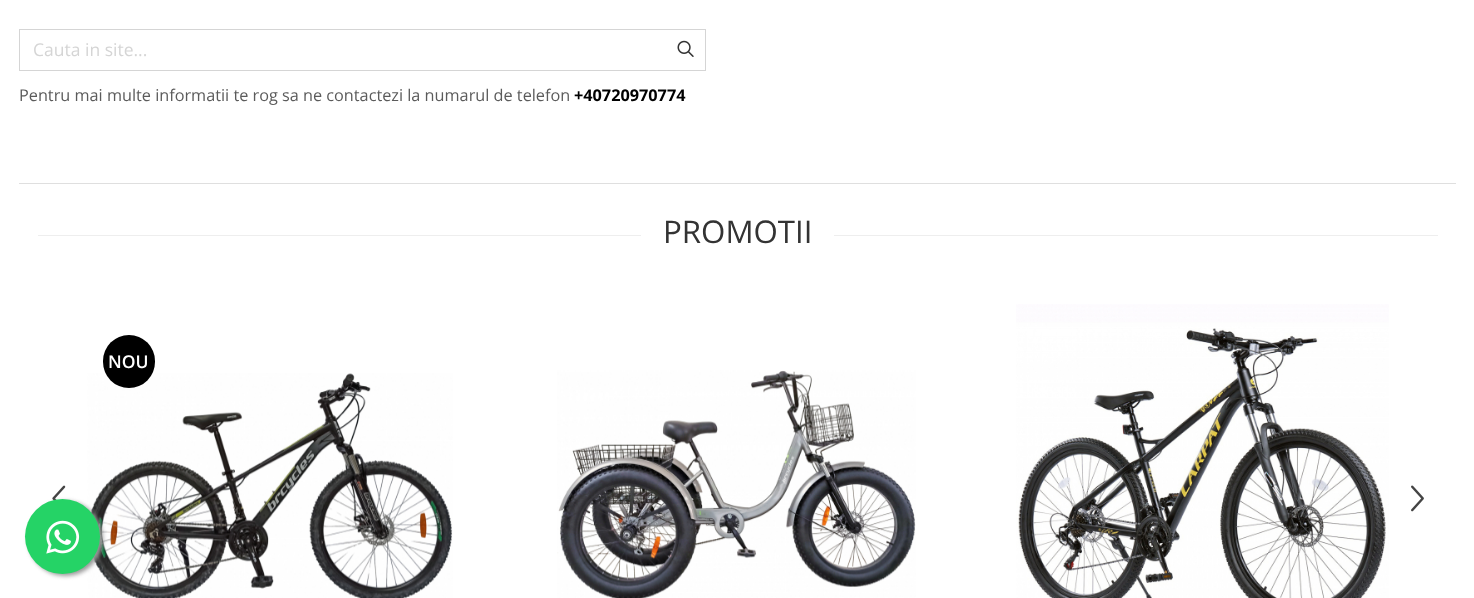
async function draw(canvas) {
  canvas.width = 1474
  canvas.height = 598
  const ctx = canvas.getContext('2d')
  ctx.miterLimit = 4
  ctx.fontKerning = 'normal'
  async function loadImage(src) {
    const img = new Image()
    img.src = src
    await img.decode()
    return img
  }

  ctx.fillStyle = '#fff'
  ctx.fillRect(0, 0, 1474, 598)
  ctx.fillStyle = '#dfdfdf'
  ctx.fillRect(19, 183, 1437, 1)
  ctx.strokeStyle = '#d5d5d5'
  ctx.strokeRect(19.5, 29.5, 686, 41)
  ctx.font = '17.5px Open Sans'
  ctx.fillStyle = '#d5d5d5'
  ctx.fillText('Cauta in site...', 33, 56)
  ctx.drawImage(await loadImage('image0.png'), 677, 40, 17, 17)
  ctx.font = '16.25px Open Sans'
  ctx.fillStyle = '#5b5b5b'
  ctx.fillText('Pentru mai multe informatii te rog sa ne contactezi la numarul de telefon', 19, 101)
  ctx.font = 'bold 16.25px Open Sans'
  ctx.fillStyle = '#000'
  ctx.fillText('+40720970774', 574, 101)
  ctx.fillStyle = '#eee'
  ctx.fillRect(38, 235, 1400, 1)
  ctx.fillStyle = '#fff'
  ctx.fillRect(641, 235, 193, 1)
  ctx.font = '31.25px Open Sans'
  ctx.fillStyle = '#333'
  ctx.fillText('PROMOTII', 663, 243)
  ctx.drawImage(await loadImage('image1.png'), 87, 373, 366, 225)
  ctx.fillStyle = '#000'
  ctx.beginPath()
  ctx.roundRect(103, 335, 52, 53, 26)
  ctx.fill()
  ctx.font = '600 17.5px Open Sans'
  ctx.fillStyle = '#fff'
  ctx.fillText('NOU', 108, 368)
  ctx.drawImage(await loadImage('image2.png'), 1016, 304, 373, 294)
  ctx.drawImage(await loadImage('image3.png'), 557, 370, 359, 228)
  ctx.drawImage(await loadImage('image4.png'), 52, 485, 14, 16)
  ctx.drawImage(await loadImage('image5.png'), 1411, 485, 13, 27)
  ctx.fillStyle = '#999'
  ctx.filter = 'blur(2px)'
  ctx.beginPath()
  ctx.roundRect(28, 501, 75, 75, 37.5)
  ctx.fill()
  ctx.filter = 'none'
  ctx.fillStyle = '#25d366'
  ctx.beginPath()
  ctx.arc(62.5, 536.5, 37.5, 0, 2 * Math.PI)
  ctx.fill()
  ctx.drawImage(await loadImage('image6.png'), 46, 520, 34, 34)
}

draw(document.querySelector('canvas'))
